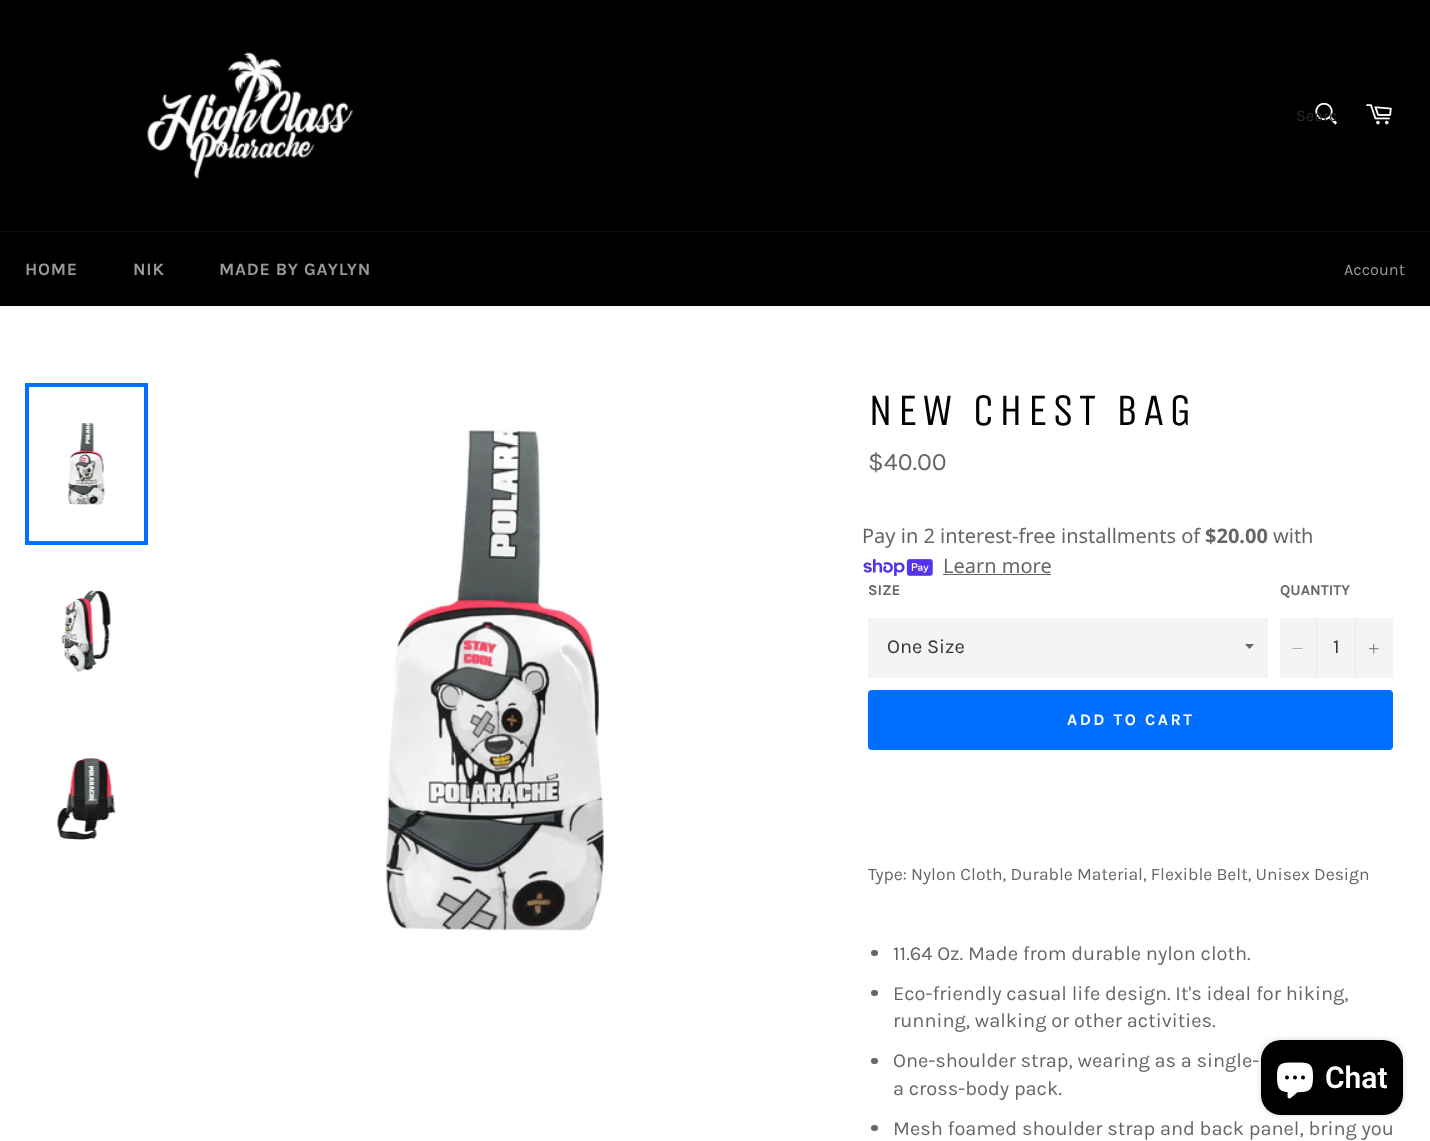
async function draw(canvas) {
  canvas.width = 1430
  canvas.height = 1141
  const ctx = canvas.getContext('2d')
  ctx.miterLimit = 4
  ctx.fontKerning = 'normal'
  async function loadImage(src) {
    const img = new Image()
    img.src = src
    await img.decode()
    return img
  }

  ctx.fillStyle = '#000'
  ctx.fillRect(0, 0, 1430, 1141)
  ctx.drawImage(await loadImage('image0.png'), 146, 52, 207, 127)
  ctx.drawImage(await loadImage('image1.png'), 1315, 102, 22, 23)
  ctx.save()
  ctx.beginPath()
  ctx.rect(1296, 106, 40, 19)
  ctx.clip()
  ctx.font = '16.25px Karla'
  ctx.fillStyle = '#2b2b2b'
  ctx.fillText('Searc', 1296, 121)
  ctx.restore()
  ctx.drawImage(await loadImage('image2.png'), 1366, 104, 26, 21)
  ctx.fillStyle = '#0d0d0d'
  ctx.fillRect(0, 231, 1430, 1)
  ctx.letterSpacing = '0.75px'
  ctx.font = 'bold 17.5px Karla'
  ctx.fillStyle = '#999'
  ctx.fillText('HOME', 25, 275)
  ctx.fillText('NIK', 133, 275)
  ctx.fillText('MADE BY GAYLYN', 219, 275)
  ctx.letterSpacing = '0px'
  ctx.font = '16.25px Karla'
  ctx.fillText('Account', 1344, 275)
  ctx.fillStyle = '#fff'
  ctx.fillRect(0, 306, 1430, 835)
  ctx.drawImage(await loadImage('image3.png'), 68, 423, 37, 82)
  ctx.strokeStyle = '#006eff'
  ctx.lineWidth = 4
  ctx.strokeRect(27, 385, 119, 158)
  ctx.drawImage(await loadImage('image4.png'), 61, 590, 50, 82)
  ctx.drawImage(await loadImage('image5.png'), 57, 757, 59, 83)
  ctx.drawImage(await loadImage('image6.png'), 385, 429, 220, 502)
  ctx.letterSpacing = '4.5px'
  ctx.font = '45px Unica One'
  ctx.fillStyle = '#030303'
  ctx.fillText('NEW CHEST BAG', 868, 425)
  ctx.letterSpacing = '0px'
  ctx.font = '25px Karla'
  ctx.fillStyle = '#666'
  ctx.fillText('$40.00', 868, 470)
  ctx.fillStyle = '#fafcff'
  ctx.fillRect(868, 500, 537, 1)
  ctx.font = '20px Noto Sans'
  ctx.fillStyle = '#666'
  ctx.fillText('Pay in 2 interest-free installments of', 862, 543)
  ctx.font = 'bold 20px Noto Sans'
  ctx.fillText('$20.00', 1205, 543)
  ctx.font = '20px Noto Sans'
  ctx.fillText('with', 1273, 543)
  ctx.drawImage(await loadImage('image7.png'), 863, 559, 70, 17)
  ctx.fillText('Learn more', 943, 573)
  ctx.fillRect(943, 574, 108, 1)
  ctx.font = 'bold 15px Karla'
  ctx.fillText('SIZE', 868, 595)
  ctx.fillStyle = '#f4f4f4'
  ctx.fillRect(868, 618, 400, 60)
  ctx.fillStyle = '#666'
  ctx.beginPath()
  ctx.moveTo(1245, 644)
  ctx.lineTo(1249.5, 649)
  ctx.lineTo(1254, 644)
  ctx.closePath()
  ctx.fill()
  ctx.font = '20px Karla'
  ctx.fillStyle = '#333'
  ctx.fillText('One Size', 887, 653)
  ctx.font = 'bold 15px Karla'
  ctx.fillStyle = '#666'
  ctx.fillText('QUANTITY', 1280, 595)
  ctx.fillStyle = '#f4f4f4'
  ctx.fillRect(1280, 618, 113, 60)
  ctx.fillStyle = '#e7e7e7'
  ctx.fillRect(1316, 618, 1, 60)
  ctx.fillStyle = '#666'
  ctx.beginPath()
  ctx.moveTo(1302.5, 648.5)
  ctx.lineTo(1302.5, 649)
  ctx.lineTo(1292.5, 649)
  ctx.lineTo(1292.5, 648.5)
  ctx.closePath()
  ctx.fill('evenodd')
  ctx.font = '20px Karla'
  ctx.fillStyle = '#333'
  ctx.fillText('1', 1333, 653)
  ctx.fillStyle = '#e7e7e7'
  ctx.fillRect(1355, 618, 1, 60)
  ctx.drawImage(await loadImage('image8.png'), 1369, 644, 10, 10)
  ctx.fillStyle = '#006eff'
  ctx.beginPath()
  ctx.roundRect(868, 690, 525, 60, 4)
  ctx.fill()
  ctx.letterSpacing = '2.5px'
  ctx.font = 'bold 16.25px Karla'
  ctx.fillStyle = '#fff'
  ctx.fillText('ADD TO CART', 1067, 725)
  ctx.fillStyle = '#fafcff'
  ctx.fillRect(868, 781, 537, 1)
  ctx.letterSpacing = '0px'
  ctx.font = '17.5px Karla'
  ctx.fillStyle = '#666'
  ctx.fillText('Type: Nylon Cloth, Durable Material, Flexible Belt, Unisex Design', 868, 880)
  ctx.beginPath()
  ctx.roundRect(871, 950, 7, 6, 3)
  ctx.fill()
  ctx.font = '20px Karla'
  ctx.fillText('11.64 Oz. Made from durable nylon cloth.', 893, 960)
  ctx.beginPath()
  ctx.roundRect(871, 990, 7, 6, 3)
  ctx.fill()
  ctx.fillText('Eco-friendly casual life design. It\'s ideal for hiking,', 893, 1000)
  ctx.fillText('running, walking or other activities.', 893, 1027)
  ctx.beginPath()
  ctx.roundRect(871, 1058, 7, 6, 3)
  ctx.fill()
  ctx.fillText('One-shoulder strap, wearing as a single-', 893, 1067)
  ctx.fillText('a cross-body pack.', 893, 1095)
  ctx.beginPath()
  ctx.roundRect(871, 1125, 7, 6, 3)
  ctx.fill()
  ctx.fillText('Mesh foamed shoulder strap and back panel, bring you', 893, 1135)
  ctx.fillStyle = '#00000026'
  ctx.filter = 'blur(3px)'
  ctx.beginPath()
  ctx.roundRect(1261, 1040, 142, 75, 20)
  ctx.fill()
  ctx.filter = 'none'
  ctx.fillStyle = '#000'
  ctx.beginPath()
  ctx.roundRect(1261, 1040, 142, 75, 20)
  ctx.fill()
  ctx.drawImage(await loadImage('image9.png'), 1277, 1062, 36, 37)
  ctx.font = '600 30px Roboto'
  ctx.fillStyle = '#fff'
  ctx.fillText('Chat', 1325, 1088)
}

draw(document.querySelector('canvas'))
